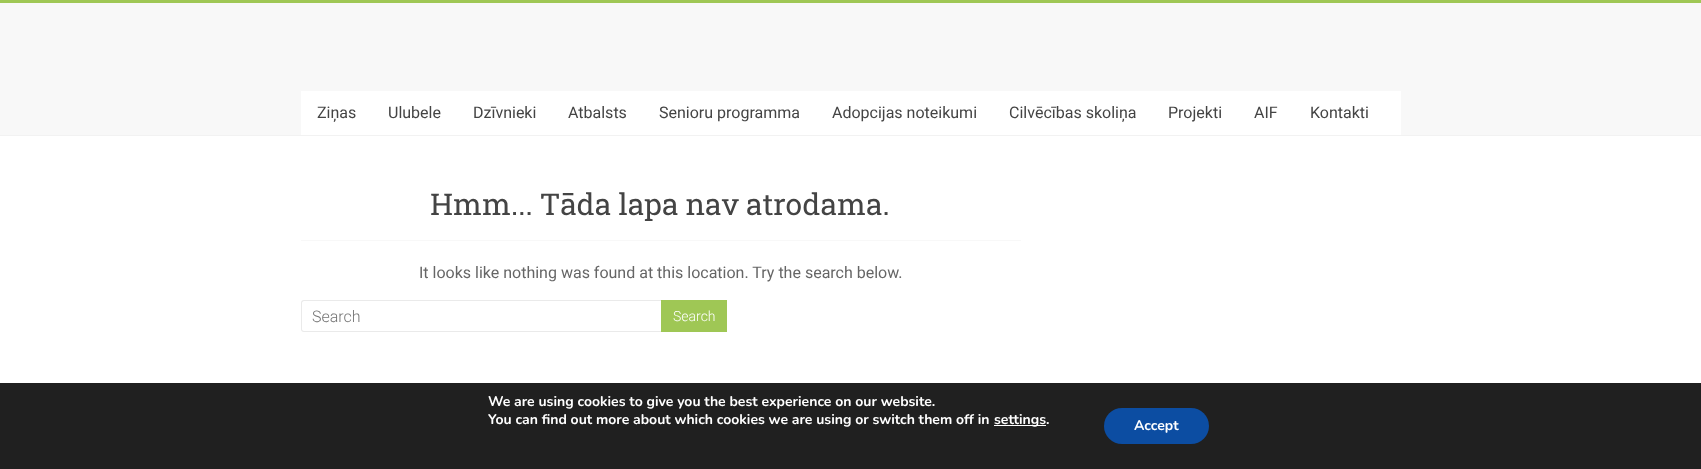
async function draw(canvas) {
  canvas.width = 1701
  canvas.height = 469
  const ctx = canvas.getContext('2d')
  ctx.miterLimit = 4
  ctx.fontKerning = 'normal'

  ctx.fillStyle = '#fff'
  ctx.fillRect(0, 0, 1701, 469)
  ctx.fillStyle = '#9fc755'
  ctx.fillRect(0, 0, 1701, 3)
  ctx.fillStyle = '#f8f8f8'
  ctx.fillRect(0, 3, 1701, 132)
  ctx.fillStyle = '#f2f2f2'
  ctx.fillRect(0, 135, 1701, 1)
  ctx.fillStyle = '#fff'
  ctx.fillRect(301, 91, 1100, 44)
  ctx.font = '16px Roboto'
  ctx.fillStyle = '#444'
  ctx.fillText('Ziņas', 317, 118)
  ctx.fillText('Ulubele', 388, 118)
  ctx.fillText('Dzīvnieki', 473, 118)
  ctx.fillText('Atbalsts', 568, 118)
  ctx.fillText('Senioru programma', 659, 118)
  ctx.fillText('Adopcijas noteikumi', 832, 118)
  ctx.fillText('Cilvēcības skoliņa', 1009, 118)
  ctx.fillText('Projekti', 1168, 118)
  ctx.fillText('AIF', 1254, 118)
  ctx.fillText('Kontakti', 1310, 118)
  ctx.fillStyle = '#f8f8f8'
  ctx.fillRect(301, 240, 720, 1)
  ctx.wordSpacing = '-0.5px'
  ctx.font = '30px Roboto Slab'
  ctx.fillStyle = '#444'
  ctx.fillText('Hmm... Tāda lapa nav atrodama.', 430, 215)
  ctx.wordSpacing = '0px'
  ctx.font = '16px Roboto'
  ctx.fillStyle = '#666'
  ctx.fillText('It looks like nothing was found at this location. Try the search below.', 419, 278)
  ctx.fillStyle = '#eaeaea'
  ctx.beginPath()
  ctx.moveTo(304, 300)
  ctx.lineTo(661, 300)
  ctx.lineTo(661, 332)
  ctx.lineTo(304, 332)
  ctx.bezierCurveTo(302, 332, 301, 331, 301, 329)
  ctx.lineTo(301, 303)
  ctx.bezierCurveTo(301, 301, 302, 300, 304, 300)
  ctx.closePath()
  ctx.moveTo(304, 301)
  ctx.lineTo(661, 301)
  ctx.lineTo(661, 331)
  ctx.lineTo(304, 331)
  ctx.bezierCurveTo(303, 331, 302, 330, 302, 329)
  ctx.lineTo(302, 303)
  ctx.bezierCurveTo(302, 302, 303, 301, 304, 301)
  ctx.closePath()
  ctx.fill('evenodd')
  ctx.font = '300 16px Roboto'
  ctx.fillStyle = '#757575'
  ctx.fillText('Search', 312, 322)
  ctx.fillStyle = '#9fc755'
  ctx.fillRect(661, 300, 66, 32)
  ctx.font = '300 14px Roboto'
  ctx.fillStyle = '#fff'
  ctx.fillText('Search', 673, 321)
  ctx.fillStyle = '#202020'
  ctx.fillRect(0, 383, 1701, 86)
  ctx.font = 'bold 14px Nunito'
  ctx.fillStyle = '#fff'
  ctx.fillText('We are using cookies to give you the best experience on our website.', 488, 406)
  ctx.fillText('You can find out more about which cookies we are using or switch them off in', 488, 424)
  ctx.fillRect(994, 425, 52, 1)
  ctx.fillText('settings.', 994, 424)
  ctx.fillStyle = '#0c4da2'
  ctx.beginPath()
  ctx.roundRect(1104, 408, 105, 36, 18)
  ctx.fill()
  ctx.fillStyle = '#fff'
  ctx.fillText('Accept', 1134, 430)
}

draw(document.querySelector('canvas'))
